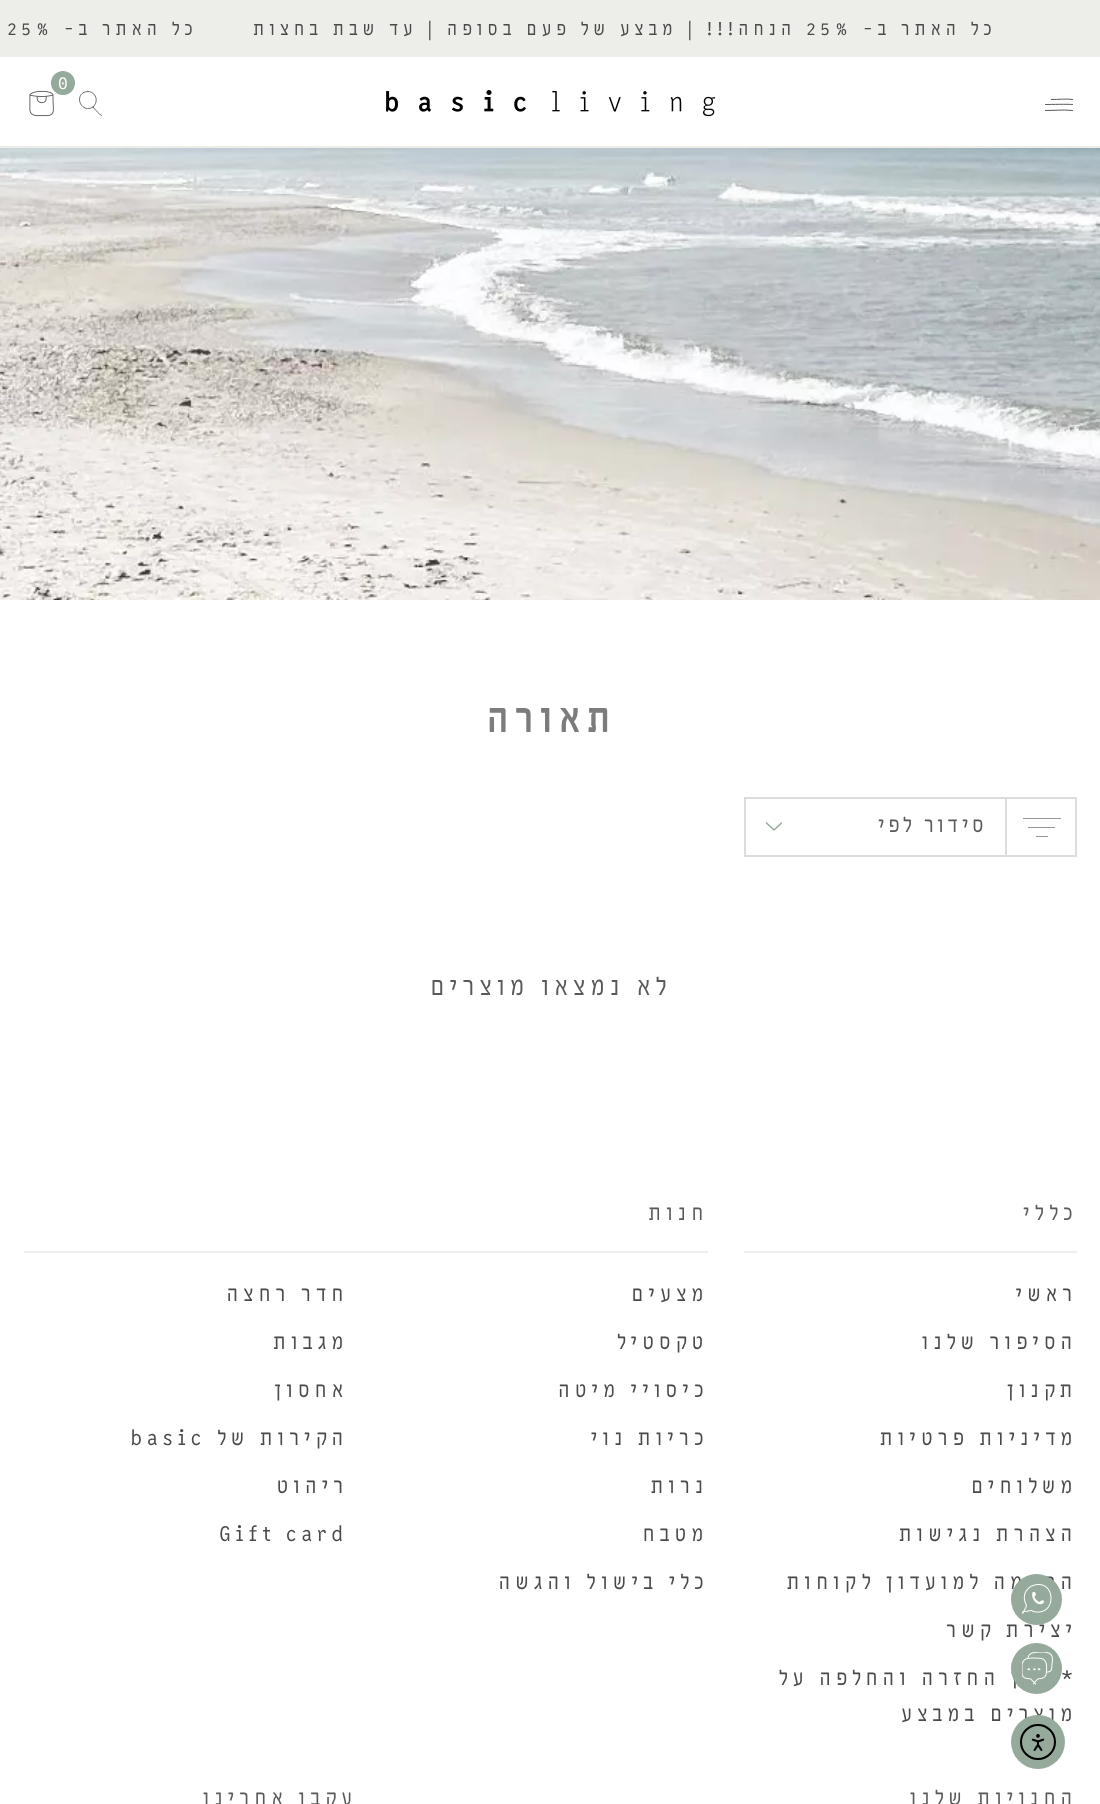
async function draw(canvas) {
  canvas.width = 1100
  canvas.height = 1804
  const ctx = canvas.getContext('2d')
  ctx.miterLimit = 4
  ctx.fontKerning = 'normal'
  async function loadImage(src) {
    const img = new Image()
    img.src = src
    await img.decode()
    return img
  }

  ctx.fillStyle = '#fff'
  ctx.fillRect(0, 0, 1100, 1804)
  ctx.fillStyle = '#edede9'
  ctx.fillRect(0, 0, 1100, 57)
  ctx.letterSpacing = '4.5px'
  ctx.direction = 'rtl'
  ctx.font = '21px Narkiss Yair'
  ctx.fillStyle = '#494949'
  ctx.fillText('כל האתר ב-', 996, 35)
  ctx.direction = 'ltr'
  ctx.fillText('25%', 806, 35)
  ctx.direction = 'rtl'
  ctx.fillText('הנחה!!! | מבצע של פעם בסופה | עד שבת בחצות', 796, 35)
  ctx.fillText('כל האתר ב-', 197, 35)
  ctx.direction = 'ltr'
  ctx.fillText('25%', 7, 35)
  ctx.fillStyle = '#edede9'
  ctx.fillRect(0, 146, 1100, 2)
  ctx.drawImage(await loadImage('image0.png'), 29, 90, 25, 27)
  ctx.fillStyle = '#95aa9b'
  ctx.beginPath()
  ctx.arc(63, 83, 12, 0, 2 * Math.PI)
  ctx.fill()
  ctx.letterSpacing = '0px'
  ctx.fillStyle = '#fff'
  ctx.fillText('0', 58, 89)
  ctx.beginPath()
  ctx.moveTo(93, 107)
  ctx.bezierCurveTo(95.5, 110, 99, 114, 101.5, 115.5)
  ctx.moveTo(93, 107)
  ctx.bezierCurveTo(80, 115, 72.5, 91.5, 88.5, 91.5)
  ctx.moveTo(93, 107)
  ctx.bezierCurveTo(99.5, 101, 95.5, 92, 88.5, 91.5)
  ctx.strokeStyle = '#595959'
  ctx.lineWidth = 0.9
  ctx.lineCap = 'round'
  ctx.stroke()
  ctx.beginPath()
  ctx.moveTo(1072.5, 99.5)
  ctx.bezierCurveTo(1067.5, 98.5, 1058, 99.5, 1051.5, 99.5)
  ctx.moveTo(1072.5, 104.5)
  ctx.bezierCurveTo(1067, 104, 1052, 104.5, 1045.5, 104.5)
  ctx.moveTo(1072.5, 110.5)
  ctx.lineTo(1064.5, 110)
  ctx.lineTo(1045.5, 110.5)
  ctx.lineWidth = 1
  ctx.stroke()
  ctx.drawImage(await loadImage('image1.png'), 386, 90, 330, 27)
  ctx.drawImage(await loadImage('image2.png'), 0, 148, 1100, 452)
  ctx.letterSpacing = '4.5px'
  ctx.direction = 'rtl'
  ctx.font = 'bold 45px Narkiss Yair'
  ctx.fillStyle = '#7b7c7b'
  ctx.fillText('תאורה', 616, 732)
  ctx.fillStyle = '#939794'
  ctx.fillRect(1023, 818, 38, 1)
  ctx.fillRect(1028, 827, 27, 1)
  ctx.fillRect(1036, 836, 12, 1)
  ctx.strokeStyle = '#dcdedc'
  ctx.lineWidth = 2
  ctx.strokeRect(1006, 798, 70, 58)
  ctx.strokeRect(745, 798, 261, 58)
  ctx.letterSpacing = '3px'
  ctx.font = '24px Narkiss Yair'
  ctx.fillStyle = '#595959'
  ctx.fillText('סידור לפי', 987, 832)
  ctx.beginPath()
  ctx.moveTo(781.5, 823)
  ctx.lineTo(774, 830)
  ctx.lineTo(766.5, 823)
  ctx.strokeStyle = '#95aa9b'
  ctx.lineWidth = 1.5
  ctx.lineJoin = 'round'
  ctx.stroke()
  ctx.letterSpacing = '4.5px'
  ctx.font = '28.75px Narkiss Yair'
  ctx.fillText('לא נמצאו מוצרים', 672, 995)
  ctx.fillStyle = '#eee'
  ctx.fillRect(744, 1251, 333, 2)
  ctx.font = '24px Narkiss Yair'
  ctx.fillStyle = '#595959'
  ctx.fillText('כללי', 1077, 1220)
  ctx.fillStyle = '#494949'
  ctx.fillText('ראשי', 1077, 1301)
  ctx.fillText('הסיפור שלנו', 1077, 1349)
  ctx.fillText('תקנון', 1077, 1397)
  ctx.fillText('מדיניות פרטיות', 1077, 1445)
  ctx.fillText('משלוחים', 1077, 1493)
  ctx.fillText('הצהרת נגישות', 1077, 1541)
  ctx.fillText('הרשמה למועדון לקוחות', 1077, 1589)
  ctx.fillText('יצירת קשר', 1077, 1637)
  ctx.fillText('* אין החזרה והחלפה על', 1077, 1685)
  ctx.fillText('מוצרים במבצע', 1077, 1721)
  ctx.fillStyle = '#eee'
  ctx.fillRect(24, 1251, 684, 2)
  ctx.fillStyle = '#595959'
  ctx.fillText('חנות', 708, 1220)
  ctx.fillStyle = '#494949'
  ctx.fillText('מצעים', 708, 1301)
  ctx.fillText('טקסטיל', 708, 1349)
  ctx.fillText('כיסויי מיטה', 708, 1397)
  ctx.fillText('כריות נוי', 708, 1445)
  ctx.fillText('נרות', 708, 1493)
  ctx.fillText('מטבח', 708, 1541)
  ctx.fillText('כלי בישול והגשה', 708, 1589)
  ctx.fillText('חדר רחצה', 348, 1301)
  ctx.fillText('מגבות', 348, 1349)
  ctx.fillText('אחסון', 348, 1397)
  ctx.fillText('הקירות של', 348, 1445)
  ctx.direction = 'ltr'
  ctx.fillText('basic', 130, 1445)
  ctx.direction = 'rtl'
  ctx.fillText('ריהוט', 348, 1493)
  ctx.direction = 'ltr'
  ctx.fillText('Gift card', 219, 1541)
  ctx.direction = 'rtl'
  ctx.fillStyle = '#595959'
  ctx.fillText('החנויות שלנו', 1077, 1805)
  ctx.fillText('עקבו אחרינו', 357, 1805)
  ctx.fillStyle = '#95aa9b'
  ctx.beginPath()
  ctx.arc(1036.5, 1599.5, 25.5, 0, 2 * Math.PI)
  ctx.fill()
  ctx.drawImage(await loadImage('image3.png'), 1022, 1584, 30, 30)
  ctx.beginPath()
  ctx.arc(1036.5, 1668.5, 25.5, 0, 2 * Math.PI)
  ctx.fill()
  ctx.drawImage(await loadImage('image4.png'), 1022, 1652, 31, 33)
  ctx.beginPath()
  ctx.arc(1038, 1742, 27, 0, 2 * Math.PI)
  ctx.fill()
  ctx.beginPath()
  ctx.arc(1038, 1742, 17, 0, 2 * Math.PI)
  ctx.strokeStyle = '#000'
  ctx.lineWidth = 2
  ctx.stroke()
  ctx.drawImage(await loadImage('image5.png'), 1031, 1734, 14, 17)
}

draw(document.querySelector('canvas'))
